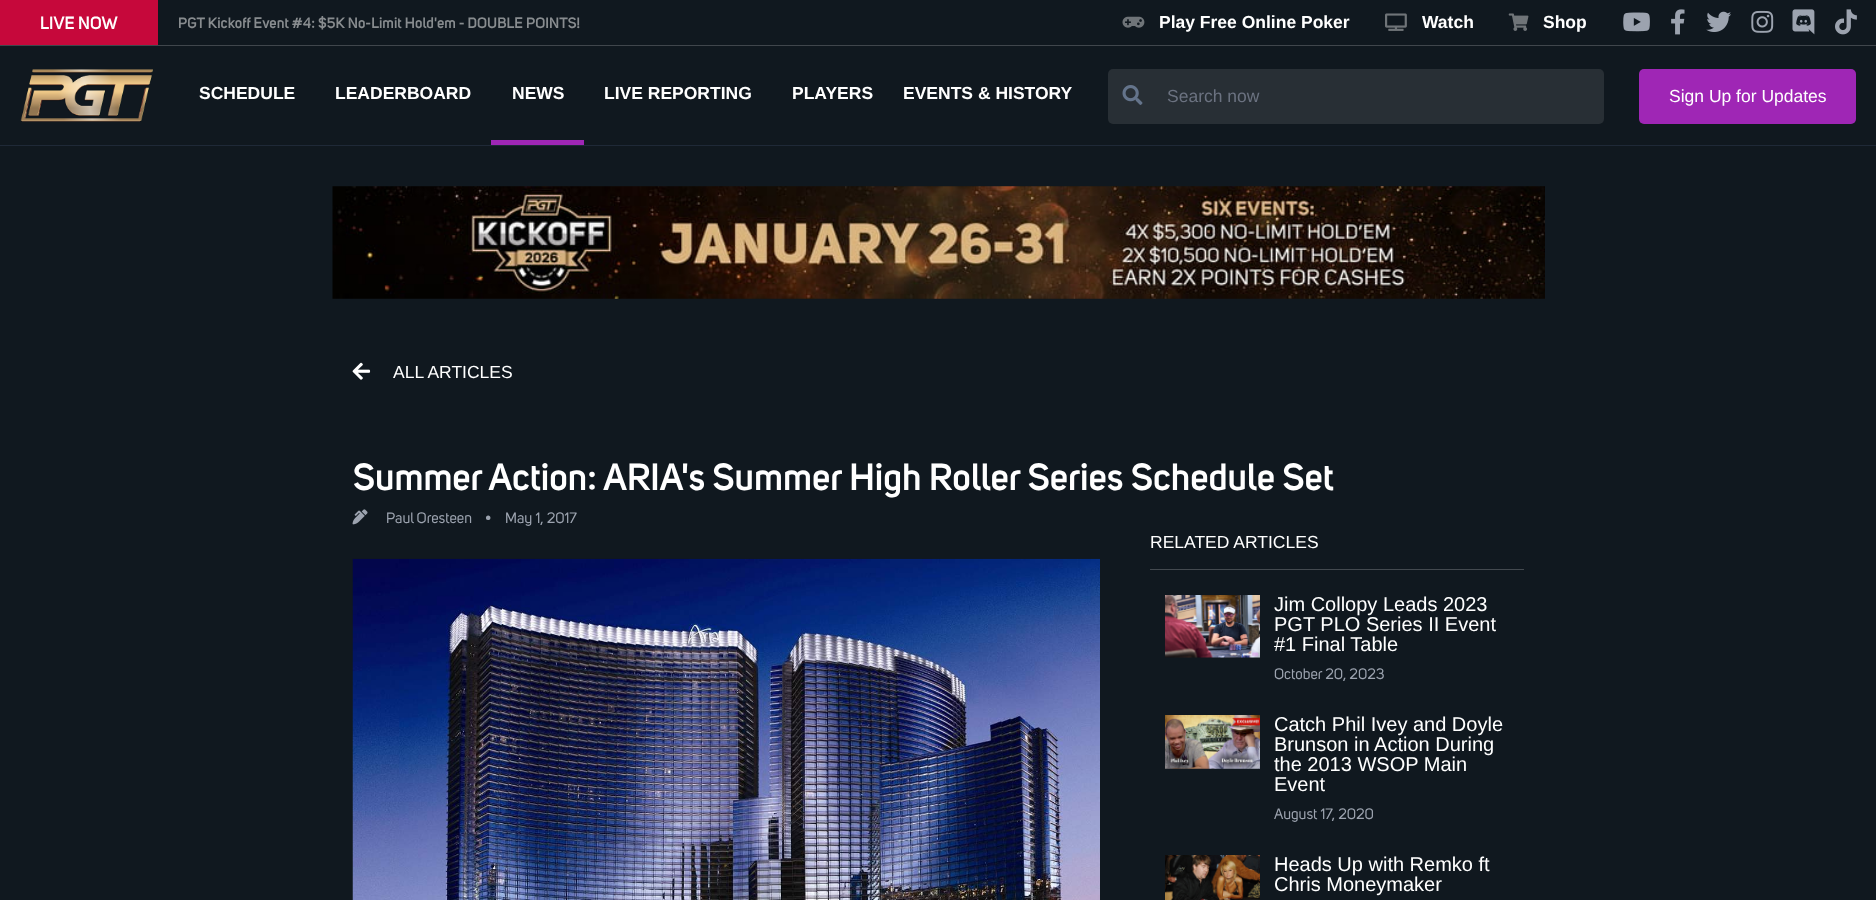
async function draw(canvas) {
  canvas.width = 1876
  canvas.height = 900
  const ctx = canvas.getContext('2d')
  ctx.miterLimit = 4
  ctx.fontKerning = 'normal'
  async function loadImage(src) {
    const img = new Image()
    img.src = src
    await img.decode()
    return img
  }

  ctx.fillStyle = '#10181f'
  ctx.fillRect(0, 0, 1876, 900)
  ctx.fillStyle = '#40464c'
  ctx.fillRect(0, 45, 1876, 1)
  ctx.fillStyle = '#c6083b'
  ctx.fillRect(0, 0, 158, 45)
  ctx.font = '600 17.5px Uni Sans'
  ctx.fillStyle = '#fff'
  ctx.fillText('LIVE NOW', 40, 29)
  ctx.font = '600 15px Uni Sans'
  ctx.fillStyle = '#888c8f'
  ctx.fillText('PGT Kickoff Event #4: $5K No-Limit Hold\'em - DOUBLE POINTS!', 178, 28)
  ctx.drawImage(await loadImage('image0.png'), 1122, 16, 23, 12)
  ctx.font = 'bold 17.5px Liberation Sans'
  ctx.fillStyle = '#fff'
  ctx.fillText('Play Free Online Poker', 1159, 28)
  ctx.drawImage(await loadImage('image1.png'), 1385, 13, 22, 18)
  ctx.fillText('Watch', 1422, 28)
  ctx.drawImage(await loadImage('image2.png'), 1508, 13, 21, 18)
  ctx.fillText('Shop', 1543, 28)
  ctx.drawImage(await loadImage('image3.png'), 1623, 12, 27, 20)
  ctx.drawImage(await loadImage('image4.png'), 1671, 9, 14, 26)
  ctx.drawImage(await loadImage('image5.png'), 1706, 11, 25, 21)
  ctx.drawImage(await loadImage('image6.png'), 1751, 10, 23, 23)
  ctx.drawImage(await loadImage('image7.png'), 1792, 9, 23, 26)
  ctx.drawImage(await loadImage('image8.png'), 1835, 9, 22, 26)
  ctx.fillStyle = '#1f2937'
  ctx.fillRect(0, 145, 1876, 1)
  ctx.drawImage(await loadImage('image9.png'), 20, 69, 133, 53)
  ctx.fillStyle = '#fff'
  ctx.fillText('SCHEDULE', 199, 99)
  ctx.fillText('LEADERBOARD', 335, 99)
  ctx.fillStyle = '#9f26b5'
  ctx.fillRect(491, 140, 93, 5)
  ctx.fillStyle = '#fff'
  ctx.fillText('NEWS', 512, 99)
  ctx.fillText('LIVE REPORTING', 604, 99)
  ctx.fillText('PLAYERS', 792, 99)
  ctx.fillText('EVENTS & HISTORY', 903, 99)
  ctx.fillStyle = '#282f35'
  ctx.beginPath()
  ctx.roundRect(1108, 69, 496, 55, 5)
  ctx.fill()
  ctx.drawImage(await loadImage('image10.png'), 1122, 85, 21, 20)
  ctx.font = '17.5px Liberation Sans'
  ctx.fillStyle = '#6b7280'
  ctx.fillText('Search now', 1167, 102)
  ctx.fillStyle = '#9f26b5'
  ctx.beginPath()
  ctx.roundRect(1639, 69, 217, 55, 5)
  ctx.fill()
  ctx.fillStyle = '#fff'
  ctx.fillText('Sign Up for Updates', 1669, 102)
  ctx.drawImage(await loadImage('image11.png'), 332, 186, 1213, 113)
  ctx.drawImage(await loadImage('image12.png'), 352, 362, 19, 18)
  ctx.fillText('ALL ARTICLES', 393, 378)
  ctx.font = '600 37.5px Uni Sans'
  ctx.fillText('Summer Action: ARIA\'s Summer High Roller Series Schedule Set', 353, 490)
  ctx.drawImage(await loadImage('image13.png'), 352, 509, 16, 16)
  ctx.font = '15px Uni Sans'
  ctx.fillStyle = '#9ca3af'
  ctx.fillText('Paul Oresteen', 386, 523)
  ctx.fillText('•', 485, 523)
  ctx.fillText('May 1, 2017', 505, 523)
  ctx.drawImage(await loadImage('image14.png'), 352, 558, 748, 342)
  ctx.fillStyle = '#43494f'
  ctx.fillRect(1150, 569, 374, 1)
  ctx.font = '17.5px Liberation Sans'
  ctx.fillStyle = '#fff'
  ctx.fillText('RELATED ARTICLES', 1150, 548)
  ctx.drawImage(await loadImage('image15.png'), 1165, 595, 95, 63)
  ctx.font = '20px Liberation Sans'
  ctx.fillText('Jim Collopy Leads 2023', 1274, 611)
  ctx.fillText('PGT PLO Series II Event', 1274, 631)
  ctx.fillText('#1 Final Table', 1274, 651)
  ctx.font = '15px Uni Sans'
  ctx.fillStyle = '#9ca3af'
  ctx.fillText('October 20, 2023', 1274, 679)
  ctx.drawImage(await loadImage('image16.png'), 1165, 715, 95, 54)
  ctx.font = '20px Liberation Sans'
  ctx.fillStyle = '#fff'
  ctx.fillText('Catch Phil Ivey and Doyle', 1274, 731)
  ctx.fillText('Brunson in Action During', 1274, 751)
  ctx.fillText('the 2013 WSOP Main', 1274, 771)
  ctx.fillText('Event', 1274, 791)
  ctx.font = '15px Uni Sans'
  ctx.fillStyle = '#9ca3af'
  ctx.fillText('August 17, 2020', 1274, 819)
  ctx.drawImage(await loadImage('image17.png'), 1165, 855, 95, 45)
  ctx.font = '20px Liberation Sans'
  ctx.fillStyle = '#fff'
  ctx.fillText('Heads Up with Remko ft', 1274, 871)
  ctx.fillText('Chris Moneymaker', 1274, 891)
}

draw(document.querySelector('canvas'))
